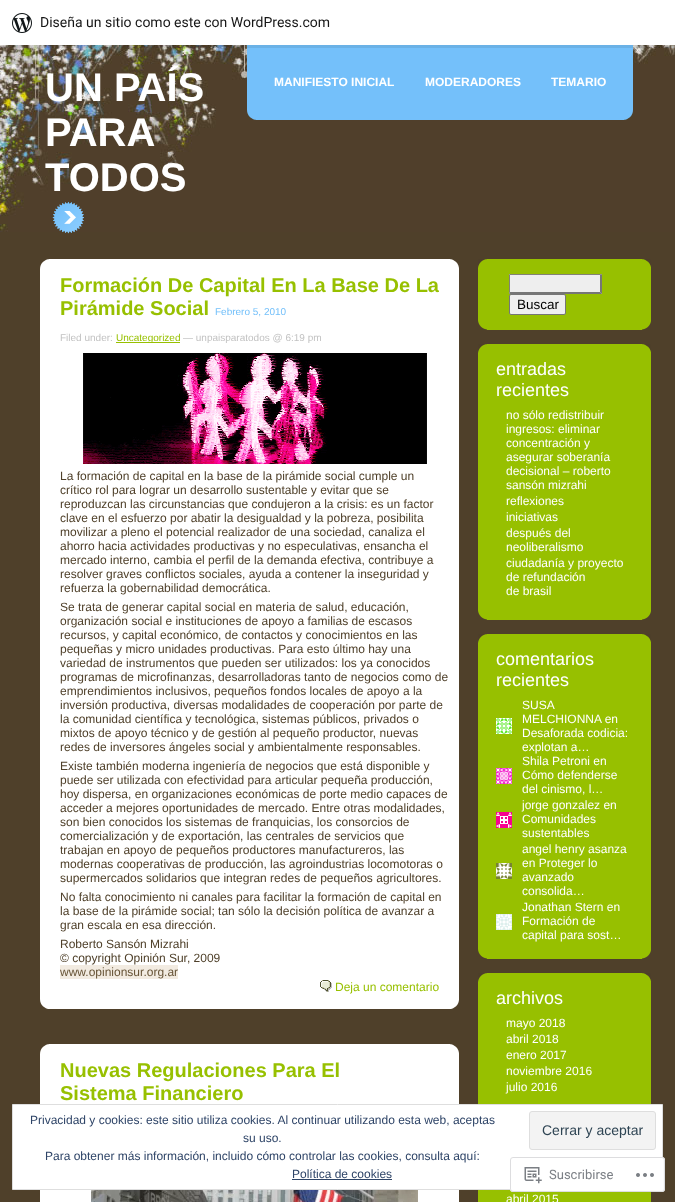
async function draw(canvas) {
  canvas.width = 675
  canvas.height = 1202
  const ctx = canvas.getContext('2d')
  ctx.miterLimit = 4
  ctx.fontKerning = 'normal'
  async function loadImage(src) {
    const img = new Image()
    img.src = src
    await img.decode()
    return img
  }

  ctx.fillStyle = '#4f402a'
  ctx.fillRect(0, 0, 675, 1202)
  ctx.drawImage(await loadImage('image0.png'), 0, 45, 675, 187)
  ctx.drawImage(await loadImage('image2.png'), 247, 45, 12, 75)
  ctx.fillStyle = '#74c0fa'
  ctx.fillRect(259, 45, 362, 75)
  ctx.drawImage(await loadImage('image3.png'), 621, 45, 12, 75)
  ctx.fillStyle = '#00000014'
  ctx.beginPath()
  ctx.moveTo(1, 45)
  ctx.lineTo(1, 48)
  ctx.lineTo(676, 48)
  ctx.lineTo(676, 3)
  ctx.lineTo(675, 3)
  ctx.lineTo(675, 45)
  ctx.closePath()
  ctx.fill()
  ctx.fillStyle = '#fff'
  ctx.fillRect(0, 0, 675, 45)
  ctx.drawImage(await loadImage('image1.png'), 12, 13, 20, 20)
  ctx.font = '14px Roboto'
  ctx.fillStyle = '#171717'
  ctx.fillText('Diseña un sitio como este con WordPress.com', 40, 27)
  ctx.font = 'bold 40px Liberation Sans'
  ctx.fillStyle = '#fff'
  ctx.fillText('UN PAÍS', 45, 101)
  ctx.fillText('PARA', 45, 146)
  ctx.fillText('TODOS', 45, 191)
  ctx.font = 'bold 12px Liberation Sans'
  ctx.fillText('MANIFIESTO INICIAL', 274, 86)
  ctx.fillText('MODERADORES', 425, 86)
  ctx.fillText('TEMARIO', 551, 86)
  ctx.drawImage(await loadImage('image4.png'), 52, 201, 32, 33)
  ctx.fillRect(40, 259, 419, 750)
  ctx.drawImage(await loadImage('image5.png'), 450, 259, 9, 10)
  ctx.drawImage(await loadImage('image6.png'), 40, 259, 9, 10)
  ctx.font = 'bold 20px Liberation Sans'
  ctx.fillStyle = '#97c000'
  ctx.fillText('Formación De Capital En La Base De La', 60, 292)
  ctx.fillText('Pirámide Social', 60, 315)
  ctx.font = '10px Liberation Sans'
  ctx.fillStyle = '#74c0fa'
  ctx.fillText('Febrero 5, 2010', 215, 315)
  ctx.fillStyle = '#c2c2c2'
  ctx.fillText('Filed under:', 60, 341)
  ctx.fillStyle = '#97c000'
  ctx.fillRect(116, 342, 64, 1)
  ctx.fillText('Uncategorized', 116, 341)
  ctx.fillStyle = '#c2c2c2'
  ctx.fillText('— unpaisparatodos @ 6:19 pm', 183, 341)
  ctx.drawImage(await loadImage('image7.png'), 83, 353, 344, 111)
  ctx.font = '12px Liberation Sans'
  ctx.fillStyle = '#4f402a'
  ctx.fillText('La formación de capital en la base de la pirámide social cumple un', 60, 480)
  ctx.fillText('crítico rol para lograr un desarrollo sustentable y evitar que se', 60, 494)
  ctx.fillText('reproduzcan las circunstancias que condujeron a la crisis: es un factor', 60, 508)
  ctx.fillText('clave en el esfuerzo por abatir la desigualdad y la pobreza, posibilita', 60, 522)
  ctx.fillText('movilizar a pleno el potencial realizador de una sociedad, canaliza el', 60, 536)
  ctx.fillText('ahorro hacia actividades productivas y no especulativas, ensancha el', 60, 550)
  ctx.fillText('mercado interno, cambia el perfil de la demanda efectiva, contribuye a', 60, 564)
  ctx.fillText('resolver graves conflictos sociales, ayuda a contener la inseguridad y', 60, 578)
  ctx.fillText('refuerza la gobernabilidad democrática.', 60, 592)
  ctx.fillText('Se trata de generar capital social en materia de salud, educación,', 60, 611)
  ctx.fillText('organización social e instituciones de apoyo a familias de escasos', 60, 625)
  ctx.fillText('recursos, y capital económico, de contactos y conocimientos en las', 60, 639)
  ctx.fillText('pequeñas y micro unidades productivas. Para esto último hay una', 60, 653)
  ctx.fillText('variedad de instrumentos que pueden ser utilizados: los ya conocidos', 60, 667)
  ctx.fillText('programas de microfinanzas, desarrolladoras tanto de negocios como de', 60, 681)
  ctx.fillText('emprendimientos inclusivos, pequeños fondos locales de apoyo a la', 60, 695)
  ctx.fillText('inversión productiva, diversas modalidades de cooperación por parte de', 60, 709)
  ctx.fillText('la comunidad científica y tecnológica, sistemas públicos, privados o', 60, 723)
  ctx.fillText('mixtos de apoyo técnico y de gestión al pequeño productor, nuevas', 60, 737)
  ctx.fillText('redes de inversores ángeles social y ambientalmente responsables.', 60, 751)
  ctx.fillText('Existe también moderna ingeniería de negocios que está disponible y', 60, 770)
  ctx.fillText('puede ser utilizada con efectividad para articular pequeña producción,', 60, 784)
  ctx.fillText('hoy dispersa, en organizaciones económicas de porte medio capaces de', 60, 798)
  ctx.fillText('acceder a mejores oportunidades de mercado. Entre otras modalidades,', 60, 812)
  ctx.fillText('son bien conocidos los sistemas de franquicias, los consorcios de', 60, 826)
  ctx.fillText('comercialización y de exportación, las centrales de servicios que', 60, 840)
  ctx.fillText('trabajan en apoyo de pequeños productores manufactureros, las', 60, 854)
  ctx.fillText('modernas cooperativas de producción, las agroindustrias locomotoras o', 60, 868)
  ctx.fillText('supermercados solidarios que integran redes de pequeños agricultores.', 60, 882)
  ctx.fillText('No falta conocimiento ni canales para facilitar la formación de capital en', 60, 901)
  ctx.fillText('la base de la pirámide social; tan sólo la decisión política de avanzar a', 60, 915)
  ctx.fillText('gran escala en esa dirección.', 60, 929)
  ctx.fillText('Roberto Sansón Mizrahi', 60, 948)
  ctx.fillText('© copyright Opinión Sur, 2009', 60, 962)
  ctx.fillStyle = '#f2ebe1'
  ctx.fillRect(60, 965, 118, 14)
  ctx.fillStyle = '#675437'
  ctx.fillText('www.opinionsur.org.ar', 60, 976)
  ctx.drawImage(await loadImage('image8.png'), 320, 980, 12, 12)
  ctx.fillStyle = '#97c000'
  ctx.fillText('Deja un comentario', 335, 991)
  ctx.drawImage(await loadImage('image9.png'), 451, 1000, 8, 9)
  ctx.drawImage(await loadImage('image10.png'), 40, 999, 8, 10)
  ctx.fillStyle = '#fff'
  ctx.fillRect(40, 1044, 419, 158)
  ctx.drawImage(await loadImage('image5.png'), 450, 1044, 9, 10)
  ctx.drawImage(await loadImage('image6.png'), 40, 1044, 9, 10)
  ctx.font = 'bold 20px Liberation Sans'
  ctx.fillStyle = '#97c000'
  ctx.fillText('Nuevas Regulaciones Para El', 60, 1077)
  ctx.fillText('Sistema Financiero', 60, 1100)
  ctx.drawImage(await loadImage('image11.png'), 91, 1190, 327, 12)
  ctx.fillRect(478, 259, 173, 71)
  ctx.drawImage(await loadImage('image12.png'), 642, 259, 9, 8)
  ctx.drawImage(await loadImage('image13.png'), 478, 259, 9, 9)
  ctx.fillStyle = '#eee'
  ctx.fillRect(509, 274, 93, 20)
  ctx.fillStyle = '#828177'
  ctx.beginPath()
  ctx.moveTo(509, 274)
  ctx.lineTo(602, 274)
  ctx.lineTo(600, 275)
  ctx.lineTo(510, 275)
  ctx.closePath()
  ctx.fill()
  ctx.fillStyle = '#767676'
  ctx.beginPath()
  ctx.moveTo(602, 274)
  ctx.lineTo(602, 294)
  ctx.lineTo(600, 292)
  ctx.lineTo(600, 275)
  ctx.closePath()
  ctx.fill()
  ctx.beginPath()
  ctx.moveTo(602, 294)
  ctx.lineTo(509, 294)
  ctx.lineTo(510, 292)
  ctx.lineTo(600, 292)
  ctx.closePath()
  ctx.fill()
  ctx.fillStyle = '#828177'
  ctx.beginPath()
  ctx.moveTo(509, 294)
  ctx.lineTo(509, 274)
  ctx.lineTo(510, 275)
  ctx.lineTo(510, 292)
  ctx.closePath()
  ctx.fill()
  ctx.fillStyle = '#efefef'
  ctx.beginPath()
  ctx.roundRect(509.5, 294.5, 56, 20, 1.5)
  ctx.fill()
  ctx.strokeStyle = '#767676'
  ctx.stroke()
  ctx.font = '13.5px Liberation Sans'
  ctx.fillStyle = '#000'
  ctx.fillText('Buscar', 517, 309)
  ctx.drawImage(await loadImage('image14.png'), 642, 321, 9, 9)
  ctx.drawImage(await loadImage('image15.png'), 478, 320, 9, 10)
  ctx.fillStyle = '#97c000'
  ctx.fillRect(478, 344, 173, 276)
  ctx.drawImage(await loadImage('image12.png'), 642, 344, 9, 8)
  ctx.drawImage(await loadImage('image13.png'), 478, 344, 9, 9)
  ctx.font = '18px Liberation Sans'
  ctx.fillStyle = '#fff'
  ctx.fillText('entradas', 496, 375)
  ctx.fillText('recientes', 496, 396)
  ctx.font = '12px Liberation Sans'
  ctx.fillText('no sólo redistribuir', 506, 419)
  ctx.fillText('ingresos: eliminar', 506, 433)
  ctx.fillText('concentración y', 506, 447)
  ctx.fillText('asegurar soberanía', 506, 461)
  ctx.fillText('decisional – roberto', 506, 475)
  ctx.fillText('sansón mizrahi', 506, 489)
  ctx.fillText('reflexiones', 506, 505)
  ctx.fillText('iniciativas', 506, 521)
  ctx.fillText('después del', 506, 537)
  ctx.fillText('neoliberalismo', 506, 551)
  ctx.fillText('ciudadanía y proyecto', 506, 567)
  ctx.fillText('de refundación', 506, 581)
  ctx.fillText('de brasil', 506, 595)
  ctx.drawImage(await loadImage('image14.png'), 642, 611, 9, 9)
  ctx.drawImage(await loadImage('image15.png'), 478, 610, 9, 10)
  ctx.fillStyle = '#97c000'
  ctx.fillRect(478, 634, 173, 325)
  ctx.drawImage(await loadImage('image12.png'), 642, 634, 9, 8)
  ctx.drawImage(await loadImage('image13.png'), 478, 634, 9, 9)
  ctx.font = '18px Liberation Sans'
  ctx.fillStyle = '#fff'
  ctx.fillText('comentarios', 496, 665)
  ctx.fillText('recientes', 496, 686)
  ctx.drawImage(await loadImage('image16.png'), 496, 718, 16, 16)
  ctx.font = '12px Liberation Sans'
  ctx.fillText('SUSA', 522, 709)
  ctx.fillText('MELCHIONNA en', 522, 723)
  ctx.fillText('Desaforada codicia:', 522, 737)
  ctx.fillText('explotan a…', 522, 751)
  ctx.drawImage(await loadImage('image17.png'), 496, 768, 16, 16)
  ctx.fillText('Shila Petroni en', 522, 765)
  ctx.fillText('Cómo defenderse', 522, 779)
  ctx.fillText('del cinismo, l…', 522, 793)
  ctx.drawImage(await loadImage('image18.png'), 496, 812, 16, 16)
  ctx.fillText('jorge gonzalez en', 522, 809)
  ctx.fillText('Comunidades', 522, 823)
  ctx.fillText('sustentables', 522, 837)
  ctx.drawImage(await loadImage('image19.png'), 496, 863, 16, 16)
  ctx.fillText('angel henry asanza', 522, 853)
  ctx.fillText('en Proteger lo', 522, 867)
  ctx.fillText('avanzado', 522, 881)
  ctx.fillText('consolida…', 522, 895)
  ctx.drawImage(await loadImage('image20.png'), 496, 914, 16, 16)
  ctx.fillText('Jonathan Stern en', 522, 911)
  ctx.fillText('Formación de', 522, 925)
  ctx.fillText('capital para sost…', 522, 939)
  ctx.drawImage(await loadImage('image14.png'), 642, 950, 9, 9)
  ctx.drawImage(await loadImage('image15.png'), 478, 949, 9, 10)
  ctx.fillStyle = '#97c000'
  ctx.fillRect(478, 973, 173, 229)
  ctx.drawImage(await loadImage('image12.png'), 642, 973, 9, 8)
  ctx.drawImage(await loadImage('image13.png'), 478, 973, 9, 9)
  ctx.font = '18px Liberation Sans'
  ctx.fillStyle = '#fff'
  ctx.fillText('archivos', 496, 1004)
  ctx.font = '12px Liberation Sans'
  ctx.fillText('mayo 2018', 506, 1027)
  ctx.fillText('abril 2018', 506, 1043)
  ctx.fillText('enero 2017', 506, 1059)
  ctx.fillText('noviembre 2016', 506, 1075)
  ctx.fillText('julio 2016', 506, 1091)
  ctx.fillText('abril 2015', 506, 1203)
  ctx.beginPath()
  ctx.rect(12.5, 1104.5, 650, 85)
  ctx.fill()
  ctx.strokeStyle = '#dedede'
  ctx.stroke()
  ctx.fillStyle = '#2e4467'
  ctx.fillText('Privacidad y cookies: este sitio utiliza cookies. Al continuar utilizando esta web, aceptas', 30, 1124)
  ctx.fillStyle = '#f3f3f3'
  ctx.beginPath()
  ctx.roundRect(529.5, 1111.5, 126, 38, 2.5)
  ctx.fill()
  ctx.stroke()
  ctx.font = '14px Liberation Sans'
  ctx.fillStyle = '#2e4453'
  ctx.fillText('Cerrar y aceptar', 542, 1135)
  ctx.font = '12px Liberation Sans'
  ctx.fillStyle = '#2e4467'
  ctx.fillText('su uso.', 243, 1142)
  ctx.fillText('Para obtener más información, incluido cómo controlar las cookies, consulta aquí:', 45, 1160)
  ctx.fillText('Política de cookies', 292, 1178)
  ctx.fillRect(292, 1179, 100, 1)
  ctx.fillStyle = '#fffffffa'
  ctx.beginPath()
  ctx.roundRect(510, 1157, 155, 35, 3)
  ctx.fill()
  ctx.beginPath()
  ctx.roundRect(510.5, 1157.5, 154, 34, 2.5)
  ctx.strokeStyle = '#dcdcdefa'
  ctx.stroke()
  ctx.drawImage(await loadImage('image21.png'), 524, 1167, 18, 17)
  ctx.font = '13px Roboto'
  ctx.fillStyle = '#7b7f85'
  ctx.fillText('Suscribirse', 549, 1179)
  ctx.drawImage(await loadImage('image22.png'), 636, 1173, 18, 4)
}

draw(document.querySelector('canvas'))
